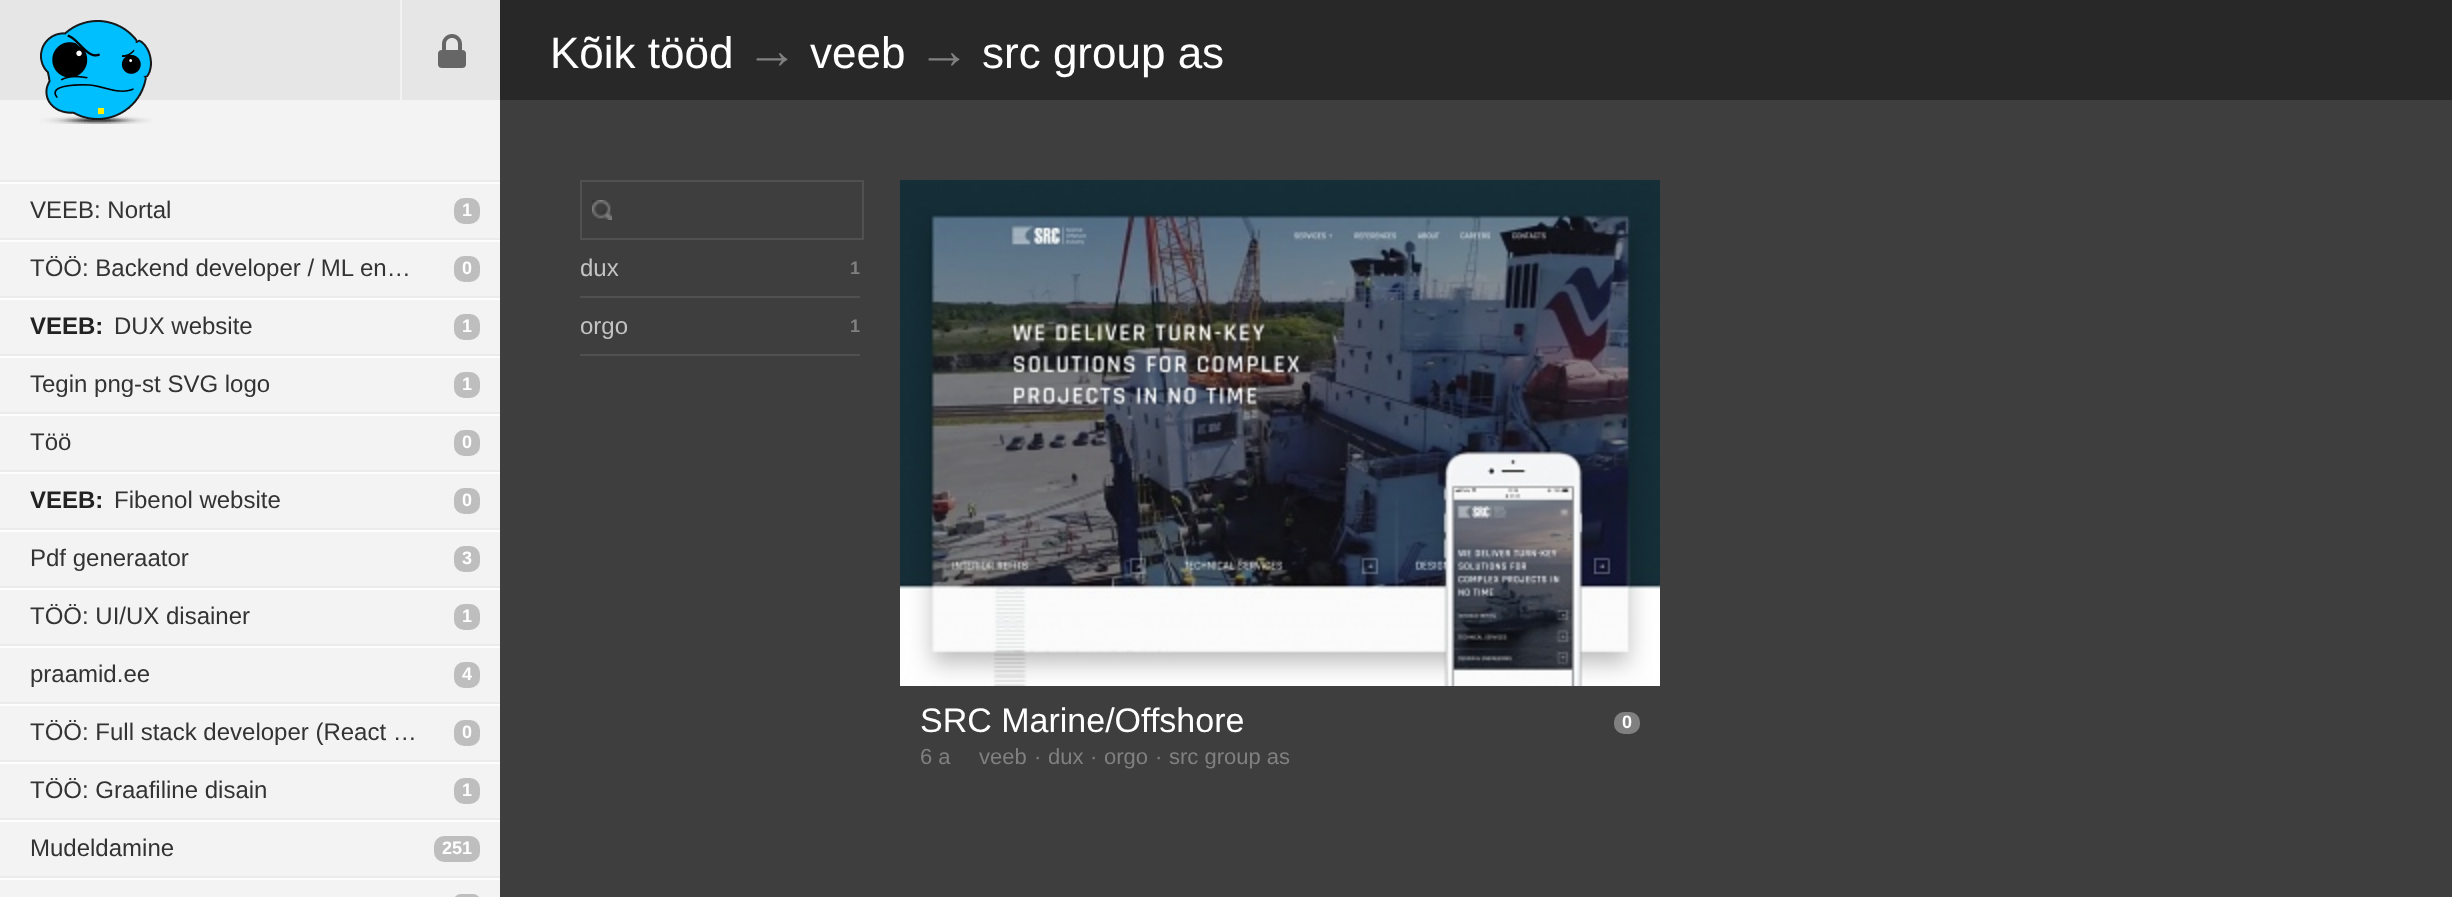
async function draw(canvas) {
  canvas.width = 2452
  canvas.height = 897
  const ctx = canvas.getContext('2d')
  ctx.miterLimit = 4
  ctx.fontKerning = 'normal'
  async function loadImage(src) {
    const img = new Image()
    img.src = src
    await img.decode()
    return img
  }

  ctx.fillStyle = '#3e3e3e'
  ctx.fillRect(0, 0, 2452, 897)
  ctx.fillStyle = '#f3f3f3'
  ctx.fillRect(0, 100, 500, 797)
  ctx.fillStyle = '#e6e6e6'
  ctx.fillRect(0, 0, 500, 100)
  ctx.fillStyle = '#f3f3f3'
  ctx.fillRect(400, 0, 2, 100)
  ctx.fillStyle = '#666'
  ctx.beginPath()
  ctx.moveTo(452, 34)
  ctx.bezierCurveTo(457.5, 34, 462, 38.5, 462, 44)
  ctx.lineTo(462, 54)
  ctx.lineTo(442, 54)
  ctx.lineTo(442, 44)
  ctx.bezierCurveTo(442, 38.5, 446.5, 34, 452, 34)
  ctx.closePath()
  ctx.moveTo(452, 38)
  ctx.bezierCurveTo(455.5, 38, 458, 40.5, 458, 44)
  ctx.lineTo(458, 54)
  ctx.lineTo(446, 54)
  ctx.lineTo(446, 44)
  ctx.bezierCurveTo(446, 40.5, 448.5, 38, 452, 38)
  ctx.closePath()
  ctx.fill('evenodd')
  ctx.beginPath()
  ctx.roundRect(438, 50, 28, 18, 4)
  ctx.fill()
  ctx.drawImage(await loadImage('image0.png'), 40, 20, 112, 104)
  ctx.fillStyle = '#ebebeb'
  ctx.fillRect(0, 180, 500, 2)
  ctx.fillStyle = '#fdfdfd'
  ctx.fillRect(0, 182, 500, 2)
  ctx.fillStyle = '#ebebeb'
  ctx.fillRect(0, 238, 500, 2)
  ctx.font = '24px Liberation Sans'
  ctx.fillStyle = '#333'
  ctx.fillText('VEEB: Nortal', 30, 218)
  ctx.fillStyle = '#bebebe'
  ctx.beginPath()
  ctx.roundRect(454, 198, 26, 26, 10)
  ctx.fill()
  ctx.font = 'bold 18px Liberation Sans'
  ctx.fillStyle = '#fff'
  ctx.fillText('1', 462, 216)
  ctx.fillStyle = '#fdfdfd'
  ctx.fillRect(0, 240, 500, 2)
  ctx.fillStyle = '#ebebeb'
  ctx.fillRect(0, 296, 500, 2)
  ctx.font = '24px Liberation Sans'
  ctx.fillStyle = '#333'
  ctx.fillText('TÖÖ: Backend developer / ML en…', 30, 276)
  ctx.fillStyle = '#bebebe'
  ctx.beginPath()
  ctx.roundRect(454, 256, 26, 26, 10)
  ctx.fill()
  ctx.font = 'bold 18px Liberation Sans'
  ctx.fillStyle = '#fff'
  ctx.fillText('0', 462, 274)
  ctx.fillStyle = '#fdfdfd'
  ctx.fillRect(0, 298, 500, 2)
  ctx.fillStyle = '#ebebeb'
  ctx.fillRect(0, 354, 500, 2)
  ctx.font = 'bold 24px Liberation Sans'
  ctx.fillStyle = '#222'
  ctx.fillText('VEEB:', 30, 334)
  ctx.font = '24px Liberation Sans'
  ctx.fillStyle = '#333'
  ctx.fillText('DUX website', 114, 334)
  ctx.fillStyle = '#bebebe'
  ctx.beginPath()
  ctx.roundRect(454, 314, 26, 26, 10)
  ctx.fill()
  ctx.font = 'bold 18px Liberation Sans'
  ctx.fillStyle = '#fff'
  ctx.fillText('1', 462, 332)
  ctx.fillStyle = '#fdfdfd'
  ctx.fillRect(0, 356, 500, 2)
  ctx.fillStyle = '#ebebeb'
  ctx.fillRect(0, 412, 500, 2)
  ctx.font = '24px Liberation Sans'
  ctx.fillStyle = '#333'
  ctx.fillText('Tegin png-st SVG logo', 30, 392)
  ctx.fillStyle = '#bebebe'
  ctx.beginPath()
  ctx.roundRect(454, 372, 26, 26, 10)
  ctx.fill()
  ctx.font = 'bold 18px Liberation Sans'
  ctx.fillStyle = '#fff'
  ctx.fillText('1', 462, 390)
  ctx.fillStyle = '#fdfdfd'
  ctx.fillRect(0, 414, 500, 2)
  ctx.fillStyle = '#ebebeb'
  ctx.fillRect(0, 470, 500, 2)
  ctx.font = '24px Liberation Sans'
  ctx.fillStyle = '#333'
  ctx.fillText('Töö', 30, 450)
  ctx.fillStyle = '#bebebe'
  ctx.beginPath()
  ctx.roundRect(454, 430, 26, 26, 10)
  ctx.fill()
  ctx.font = 'bold 18px Liberation Sans'
  ctx.fillStyle = '#fff'
  ctx.fillText('0', 462, 448)
  ctx.fillStyle = '#fdfdfd'
  ctx.fillRect(0, 472, 500, 2)
  ctx.fillStyle = '#ebebeb'
  ctx.fillRect(0, 528, 500, 2)
  ctx.font = 'bold 24px Liberation Sans'
  ctx.fillStyle = '#222'
  ctx.fillText('VEEB:', 30, 508)
  ctx.font = '24px Liberation Sans'
  ctx.fillStyle = '#333'
  ctx.fillText('Fibenol website', 114, 508)
  ctx.fillStyle = '#bebebe'
  ctx.beginPath()
  ctx.roundRect(454, 488, 26, 26, 10)
  ctx.fill()
  ctx.font = 'bold 18px Liberation Sans'
  ctx.fillStyle = '#fff'
  ctx.fillText('0', 462, 506)
  ctx.fillStyle = '#fdfdfd'
  ctx.fillRect(0, 530, 500, 2)
  ctx.fillStyle = '#ebebeb'
  ctx.fillRect(0, 586, 500, 2)
  ctx.font = '24px Liberation Sans'
  ctx.fillStyle = '#333'
  ctx.fillText('Pdf generaator', 30, 566)
  ctx.fillStyle = '#bebebe'
  ctx.beginPath()
  ctx.roundRect(454, 546, 26, 26, 10)
  ctx.fill()
  ctx.font = 'bold 18px Liberation Sans'
  ctx.fillStyle = '#fff'
  ctx.fillText('3', 462, 564)
  ctx.fillStyle = '#fdfdfd'
  ctx.fillRect(0, 588, 500, 2)
  ctx.fillStyle = '#ebebeb'
  ctx.fillRect(0, 644, 500, 2)
  ctx.font = '24px Liberation Sans'
  ctx.fillStyle = '#333'
  ctx.fillText('TÖÖ: UI/UX disainer', 30, 624)
  ctx.fillStyle = '#bebebe'
  ctx.beginPath()
  ctx.roundRect(454, 604, 26, 26, 10)
  ctx.fill()
  ctx.font = 'bold 18px Liberation Sans'
  ctx.fillStyle = '#fff'
  ctx.fillText('1', 462, 622)
  ctx.fillStyle = '#fdfdfd'
  ctx.fillRect(0, 646, 500, 2)
  ctx.fillStyle = '#ebebeb'
  ctx.fillRect(0, 702, 500, 2)
  ctx.font = '24px Liberation Sans'
  ctx.fillStyle = '#333'
  ctx.fillText('praamid.ee', 30, 682)
  ctx.fillStyle = '#bebebe'
  ctx.beginPath()
  ctx.roundRect(454, 662, 26, 26, 10)
  ctx.fill()
  ctx.font = 'bold 18px Liberation Sans'
  ctx.fillStyle = '#fff'
  ctx.fillText('4', 462, 680)
  ctx.fillStyle = '#fdfdfd'
  ctx.fillRect(0, 704, 500, 2)
  ctx.fillStyle = '#ebebeb'
  ctx.fillRect(0, 760, 500, 2)
  ctx.font = '24px Liberation Sans'
  ctx.fillStyle = '#333'
  ctx.fillText('TÖÖ: Full stack developer (React …', 30, 740)
  ctx.fillStyle = '#bebebe'
  ctx.beginPath()
  ctx.roundRect(454, 720, 26, 26, 10)
  ctx.fill()
  ctx.font = 'bold 18px Liberation Sans'
  ctx.fillStyle = '#fff'
  ctx.fillText('0', 462, 738)
  ctx.fillStyle = '#fdfdfd'
  ctx.fillRect(0, 762, 500, 2)
  ctx.fillStyle = '#ebebeb'
  ctx.fillRect(0, 818, 500, 2)
  ctx.font = '24px Liberation Sans'
  ctx.fillStyle = '#333'
  ctx.fillText('TÖÖ: Graafiline disain', 30, 798)
  ctx.fillStyle = '#bebebe'
  ctx.beginPath()
  ctx.roundRect(454, 778, 26, 26, 10)
  ctx.fill()
  ctx.font = 'bold 18px Liberation Sans'
  ctx.fillStyle = '#fff'
  ctx.fillText('1', 462, 796)
  ctx.fillStyle = '#fdfdfd'
  ctx.fillRect(0, 820, 500, 2)
  ctx.fillStyle = '#ebebeb'
  ctx.fillRect(0, 876, 500, 2)
  ctx.font = '24px Liberation Sans'
  ctx.fillStyle = '#333'
  ctx.fillText('Mudeldamine', 30, 856)
  ctx.fillStyle = '#bebebe'
  ctx.beginPath()
  ctx.roundRect(434, 836, 46, 26, 10)
  ctx.fill()
  ctx.font = 'bold 18px Liberation Sans'
  ctx.fillStyle = '#fff'
  ctx.fillText('251', 442, 854)
  ctx.fillStyle = '#fdfdfd'
  ctx.fillRect(0, 878, 500, 2)
  ctx.fillStyle = '#bebebe'
  ctx.beginPath()
  ctx.roundRect(454, 894, 26, 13, 10)
  ctx.fill()
  ctx.fillStyle = '#282828'
  ctx.fillRect(500, 0, 1952, 100)
  ctx.font = '44px Liberation Sans'
  ctx.fillStyle = '#fff'
  ctx.fillText('Kõik tööd', 550, 68)
  ctx.font = '52px Liberation Sans'
  ctx.fillStyle = '#808080'
  ctx.fillText('→', 746, 68)
  ctx.font = '44px Liberation Sans'
  ctx.fillStyle = '#fff'
  ctx.fillText('veeb', 810, 68)
  ctx.font = '52px Liberation Sans'
  ctx.fillStyle = '#808080'
  ctx.fillText('→', 918, 68)
  ctx.font = '44px Liberation Sans'
  ctx.fillStyle = '#fff'
  ctx.fillText('src group as', 982, 68)
  ctx.strokeStyle = '#505050'
  ctx.lineWidth = 2
  ctx.strokeRect(581, 181, 282, 58)
  ctx.drawImage(await loadImage('image1.png'), 592, 200, 20, 20)
  ctx.fillStyle = '#505050'
  ctx.fillRect(580, 296, 280, 2)
  ctx.font = '24px Liberation Sans'
  ctx.fillStyle = '#c3c3c3'
  ctx.fillText('dux', 580, 276)
  ctx.font = 'bold 18px Liberation Sans'
  ctx.fillStyle = '#808080'
  ctx.fillText('1', 850, 274)
  ctx.fillStyle = '#505050'
  ctx.fillRect(580, 354, 280, 2)
  ctx.font = '24px Liberation Sans'
  ctx.fillStyle = '#c3c3c3'
  ctx.fillText('orgo', 580, 334)
  ctx.font = 'bold 18px Liberation Sans'
  ctx.fillStyle = '#808080'
  ctx.fillText('1', 850, 332)
  ctx.drawImage(await loadImage('image2.png'), 900, 180, 760, 506)
  ctx.font = '34px Liberation Sans'
  ctx.fillStyle = '#fff'
  ctx.fillText('SRC Marine/Offshore', 920, 732)
  ctx.fillStyle = '#808080'
  ctx.beginPath()
  ctx.roundRect(1614, 712, 26, 22, 10)
  ctx.fill()
  ctx.font = 'bold 18px Liberation Sans'
  ctx.fillStyle = '#fff'
  ctx.fillText('0', 1622, 728)
  ctx.font = '22px Liberation Sans'
  ctx.fillStyle = '#808080'
  ctx.fillText('6 a', 920, 764)
  ctx.fillText('veeb', 979, 764)
  ctx.fillText('·', 1034, 764)
  ctx.fillText('dux', 1048, 764)
  ctx.fillText('·', 1090, 764)
  ctx.fillText('orgo', 1104, 764)
  ctx.fillText('·', 1155, 764)
  ctx.fillText('src group as', 1169, 764)
}

draw(document.querySelector('canvas'))
